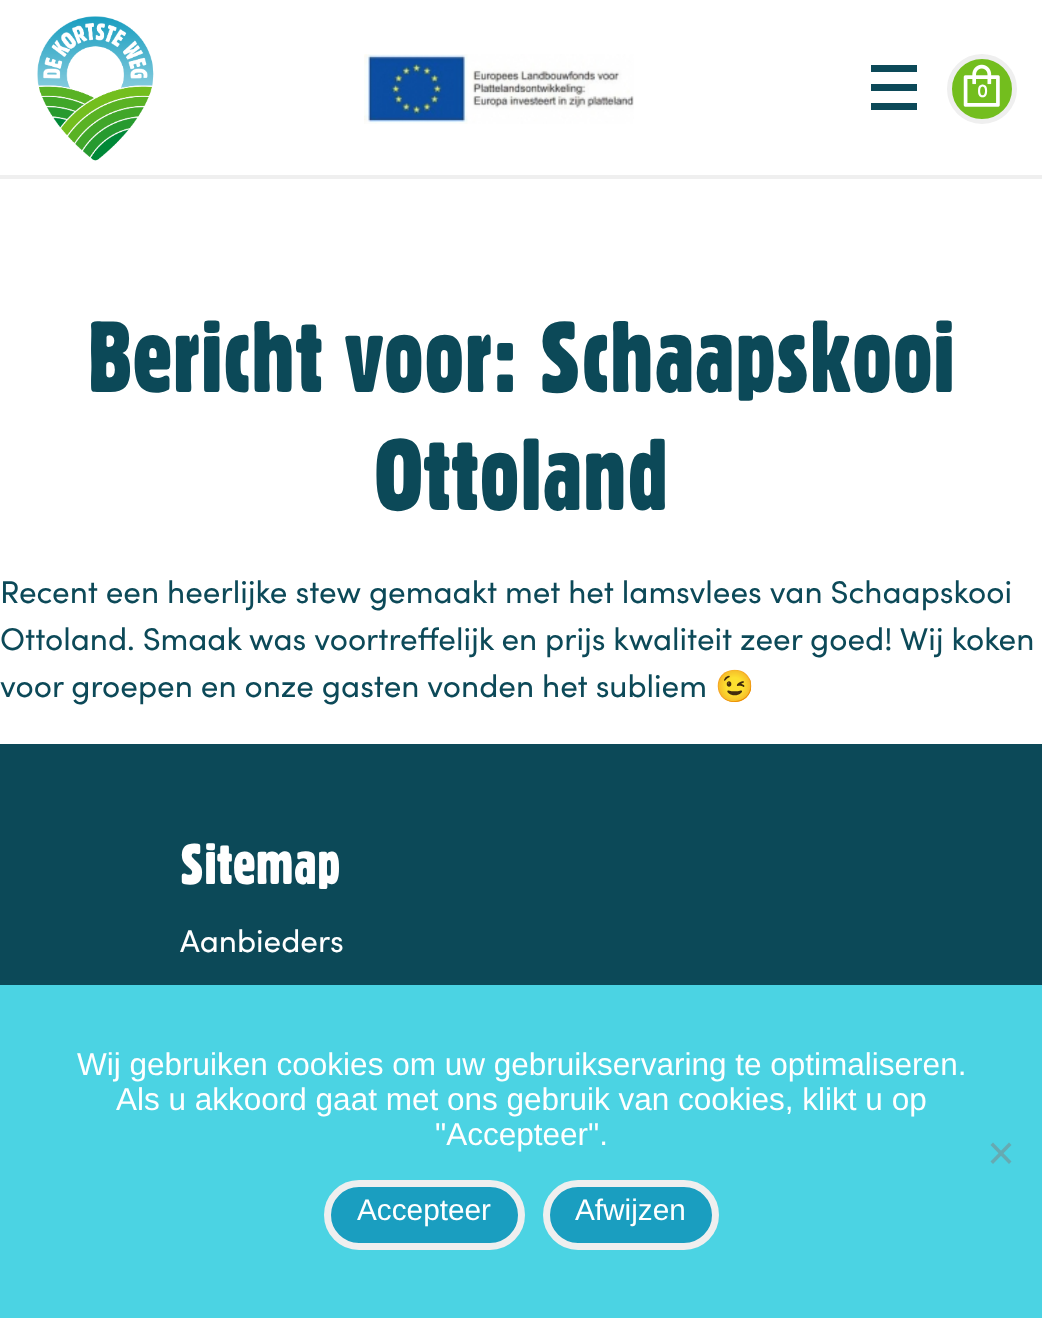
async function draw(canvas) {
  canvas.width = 1042
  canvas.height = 1318
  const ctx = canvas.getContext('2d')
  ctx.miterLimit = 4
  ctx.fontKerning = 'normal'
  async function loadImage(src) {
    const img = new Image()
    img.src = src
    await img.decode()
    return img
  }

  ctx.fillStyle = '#fff'
  ctx.fillRect(0, 0, 1042, 1318)
  ctx.fillStyle = '#efefef'
  ctx.fillRect(0, 175, 1042, 4)
  ctx.drawImage(await loadImage('image0.png'), 37, 16, 117, 145)
  ctx.drawImage(await loadImage('image1.png'), 364, 54, 270, 70)
  ctx.fillStyle = '#0c4958'
  ctx.beginPath()
  ctx.moveTo(871, 65)
  ctx.lineTo(917, 65)
  ctx.lineTo(917, 72)
  ctx.lineTo(871, 72)
  ctx.closePath()
  ctx.moveTo(871, 84)
  ctx.lineTo(917, 84)
  ctx.lineTo(917, 91)
  ctx.lineTo(871, 91)
  ctx.closePath()
  ctx.moveTo(871, 103)
  ctx.lineTo(917, 103)
  ctx.lineTo(917, 110)
  ctx.lineTo(871, 110)
  ctx.closePath()
  ctx.fill()
  ctx.fillStyle = '#73be1e'
  ctx.beginPath()
  ctx.arc(982, 89, 32.5, 0, 2 * Math.PI)
  ctx.fill()
  ctx.strokeStyle = '#efefef'
  ctx.lineWidth = 5
  ctx.stroke()
  ctx.font = 'bold 18px sofia'
  ctx.fillStyle = '#fff'
  ctx.fillText('0', 977, 97)
  ctx.drawImage(await loadImage('image2.png'), 963, 64, 37, 43)
  ctx.font = '98px "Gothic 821"'
  ctx.fillStyle = '#0c4958'
  ctx.fillText('Bericht voor: Schaapskooi', 88, 392)
  ctx.fillText('Ottoland', 374, 510)
  ctx.font = '31.5px sofia'
  ctx.fillText('Recent een heerlijke stew gemaakt met het lamsvlees van Schaapskooi', 0, 603)
  ctx.fillText('Ottoland. Smaak was voortreffelijk en prijs kwaliteit zeer goed! Wij koken', 0, 650)
  ctx.fillText('voor groepen en onze gasten vonden het subliem', 0, 697)
  ctx.font = '31.5px Noto Color Emoji'
  ctx.fillText('😉', 715, 697)
  ctx.fillRect(0, 744, 1042, 241)
  ctx.font = '56px "Gothic 821"'
  ctx.fillStyle = '#fff'
  ctx.fillText('Sitemap', 180, 884)
  ctx.font = '31.5px sofia'
  ctx.fillText('Aanbieders', 180, 952)
  ctx.fillStyle = '#4bd3e3'
  ctx.fillRect(0, 985, 1042, 333)
  ctx.font = '31.5px Liberation Sans'
  ctx.fillStyle = '#fff'
  ctx.fillText('Wij gebruiken cookies om uw gebruikservaring te optimaliseren.', 77, 1075)
  ctx.fillText('Als u akkoord gaat met ons gebruik van cookies, klikt u op', 116, 1110)
  ctx.fillText('"Accepteer".', 435, 1145)
  ctx.fillStyle = '#66aab2'
  ctx.beginPath()
  ctx.moveTo(1009, 1142.5)
  ctx.lineTo(1011.5, 1145)
  ctx.lineTo(993, 1164)
  ctx.lineTo(990.5, 1161.5)
  ctx.closePath()
  ctx.fill()
  ctx.beginPath()
  ctx.moveTo(990.5, 1145)
  ctx.lineTo(993, 1142.5)
  ctx.lineTo(1011.5, 1161.5)
  ctx.lineTo(1009, 1164)
  ctx.closePath()
  ctx.fill()
  ctx.fillStyle = '#1a9ec0'
  ctx.beginPath()
  ctx.roundRect(327.5, 1183.5, 194, 63, 31.5)
  ctx.fill()
  ctx.lineWidth = 7
  ctx.stroke()
  ctx.font = '29.75px Liberation Sans'
  ctx.fillStyle = '#fff'
  ctx.fillText('Accepteer', 357, 1220)
  ctx.fillStyle = '#1a9ec0'
  ctx.beginPath()
  ctx.roundRect(546.5, 1183.5, 169, 63, 31.5)
  ctx.fill()
  ctx.stroke()
  ctx.fillStyle = '#fff'
  ctx.fillText('Afwijzen', 575, 1220)
}

draw(document.querySelector('canvas'))
